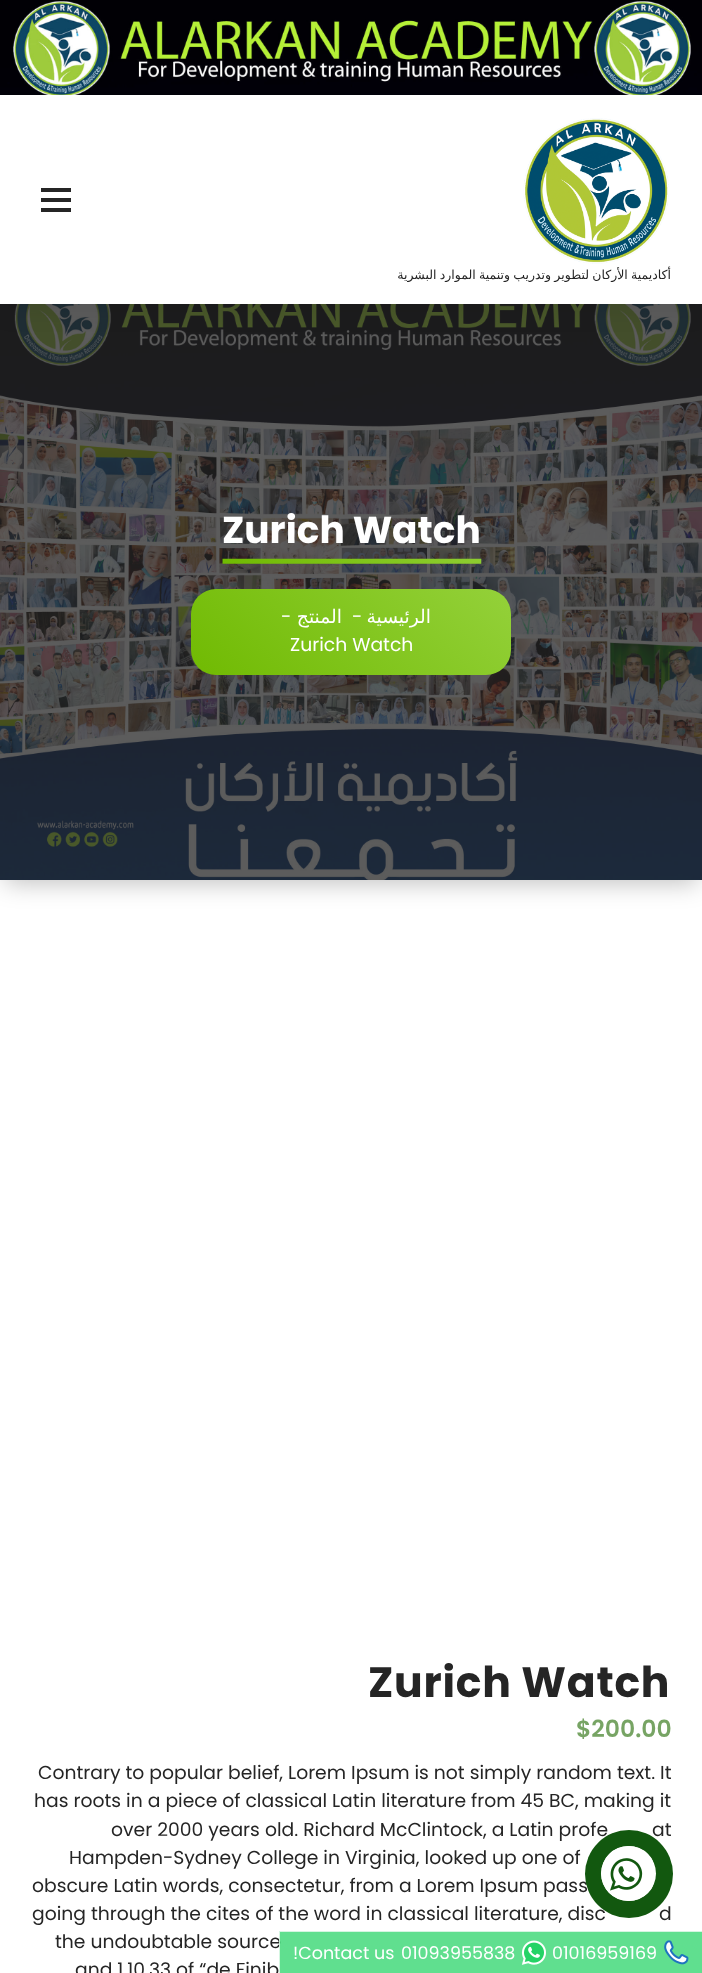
async function draw(canvas) {
  canvas.width = 702
  canvas.height = 1973
  const ctx = canvas.getContext('2d')
  ctx.miterLimit = 4
  ctx.fontKerning = 'normal'
  async function loadImage(src) {
    const img = new Image()
    img.src = src
    await img.decode()
    return img
  }
  let gradient

  ctx.fillStyle = '#fff'
  ctx.fillRect(0, 0, 702, 1973)
  ctx.drawImage(await loadImage('image0.png'), 0, 0, 702, 95)
  ctx.fillStyle = '#00000040'
  ctx.filter = 'blur(12.5px)'
  ctx.beginPath()
  ctx.rect(5, 316, 693, 567)
  ctx.fill()
  ctx.filter = 'none'
  ctx.drawImage(await loadImage('image2.png'), 0, 304, 702, 576)
  ctx.fillStyle = '#0000000d'
  ctx.filter = 'blur(9.5px)'
  ctx.beginPath()
  ctx.rect(0, 108, 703, 208)
  ctx.fill()
  ctx.filter = 'none'
  ctx.fillStyle = '#fff'
  ctx.fillRect(0, 100, 702, 204)
  ctx.fillStyle = '#252525'
  ctx.fillRect(41, 188, 30, 4)
  ctx.fillRect(41, 198, 30, 4)
  ctx.fillRect(41, 208, 30, 4)
  ctx.drawImage(await loadImage('image1.png'), 523, 118, 146, 146)
  ctx.wordSpacing = '-0.75px'
  ctx.direction = 'rtl'
  ctx.font = '12.5px DejaVu Sans'
  ctx.fillText('أكاديمية الأركان لتطوير وتدريب وتنمية الموارد البشرية', 671, 279)
  ctx.drawImage(await loadImage('image3.png'), 222, 558, 260, 6)
  ctx.wordSpacing = '0px'
  ctx.direction = 'ltr'
  ctx.font = 'bold 37.5px Poppins'
  ctx.fillStyle = '#fff'
  ctx.fillText('Zurich Watch', 222, 543)
  gradient = ctx.createLinearGradient(447, 529, 255, 735)
  gradient.addColorStop(0, '#94d13a')
  gradient.addColorStop(1, '#70ba02')
  ctx.fillStyle = gradient
  ctx.beginPath()
  ctx.roundRect(191, 589, 320, 86, 25)
  ctx.fill()
  ctx.font = '18.75px Poppins'
  ctx.fillStyle = '#fff'
  ctx.fillText('-', 281, 623)
  ctx.direction = 'rtl'
  ctx.font = '18.75px DejaVu Sans'
  ctx.fillText('المنتج', 342, 623)
  ctx.direction = 'ltr'
  ctx.font = '18.75px Poppins'
  ctx.fillText('-', 352, 623)
  ctx.direction = 'rtl'
  ctx.font = '18.75px DejaVu Sans'
  ctx.fillText('الرئيسية', 431, 623)
  ctx.direction = 'ltr'
  ctx.font = '18.75px Poppins'
  ctx.fillText('Zurich Watch', 290, 651)
  ctx.letterSpacing = '0.75px'
  ctx.font = 'bold 42.5px Poppins'
  ctx.fillStyle = '#252525'
  ctx.fillText('Zurich Watch', 368, 1697)
  ctx.letterSpacing = '0px'
  ctx.font = '600 23.5px Poppins'
  ctx.fillStyle = '#77a464'
  ctx.fillText('$200.00', 576, 1737)
  ctx.font = '18.75px Poppins'
  ctx.fillStyle = '#252525'
  ctx.fillText('Contrary to popular belief, Lorem Ipsum is not simply random text. It', 38, 1779)
  ctx.fillText('has roots in a piece of classical Latin literature from 45 BC, making it', 34, 1807)
  ctx.fillText('over 2000 years old. Richard McClintock, a Latin profe', 111, 1836)
  ctx.fillText('at', 652, 1836)
  ctx.fillText('Hampden-Sydney College in Virginia, looked up one of', 69, 1864)
  ctx.fillText('obscure Latin words, consectetur, from a Lorem Ipsum pass', 32, 1892)
  ctx.fillText('going through the cites of the word in classical literature, disc', 32, 1920)
  ctx.fillText('d', 659, 1920)
  ctx.fillText('the undoubtable source', 55, 1948)
  ctx.fillText('and 1.10.33 of “de Finib', 75, 1976)
  ctx.fillStyle = '#12580f'
  ctx.beginPath()
  ctx.arc(629, 1874, 44, 0, 2 * Math.PI)
  ctx.fill()
  ctx.fillStyle = '#fff'
  ctx.beginPath()
  ctx.arc(628.5, 1873.5, 27.5, 0, 2 * Math.PI)
  ctx.fill()
  ctx.save()
  ctx.beginPath()
  ctx.roundRect(601, 1846, 55, 55, 27.5)
  ctx.clip()
  ctx.beginPath()
  ctx.roundRect(601, 1846, 52, 55, [27.5, 0, 0, 27.5])
  ctx.fill()
  ctx.restore()
  ctx.drawImage(await loadImage('image4.png'), 610, 1858, 33, 33)
  ctx.fillStyle = '#25d366ba'
  ctx.fillRect(279, 1931, 423, 42)
  ctx.strokeStyle = '#ffffffba'
  ctx.strokeRect(279.5, 1931.5, 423, 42)
  ctx.font = '17.5px Poppins'
  ctx.fillStyle = '#fff'
  ctx.fillText('!Contact us', 293, 1959)
  ctx.fillText('01093955838', 401, 1959)
  ctx.drawImage(await loadImage('image5.png'), 521, 1940, 25, 25)
  ctx.fillText('01016959169', 552, 1959)
  ctx.drawImage(await loadImage('image6.png'), 664, 1940, 25, 25)
}

draw(document.querySelector('canvas'))
